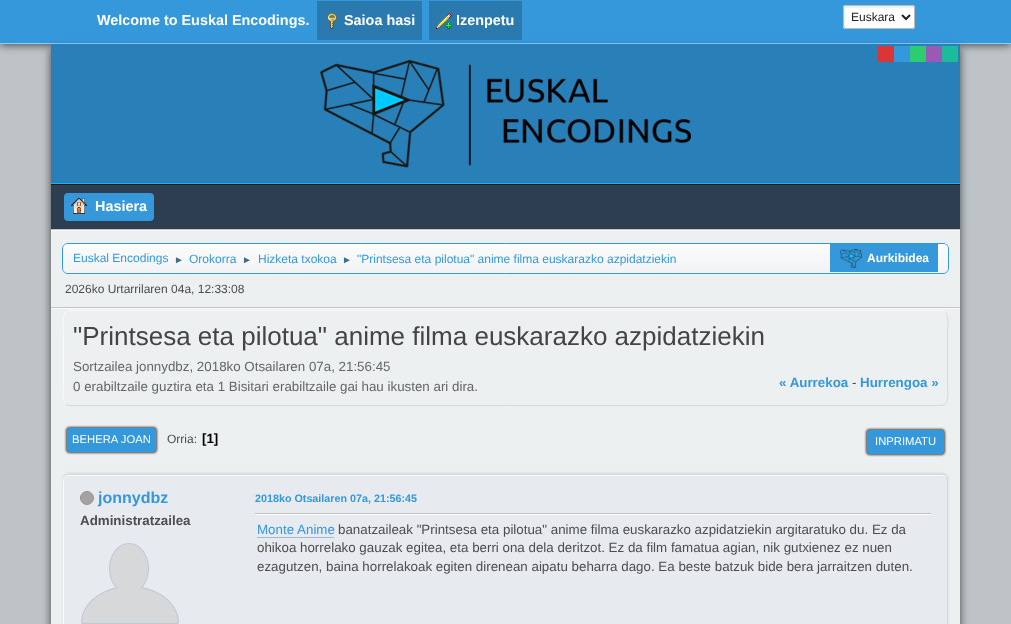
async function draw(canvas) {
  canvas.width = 1011
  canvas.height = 624
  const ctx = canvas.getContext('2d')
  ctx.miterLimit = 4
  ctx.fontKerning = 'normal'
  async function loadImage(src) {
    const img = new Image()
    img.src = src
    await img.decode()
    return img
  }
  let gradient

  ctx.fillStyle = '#bdc3c7'
  ctx.fillRect(0, 0, 1011, 624)
  ctx.fillStyle = '#323232e0'
  ctx.filter = 'blur(4px)'
  ctx.beginPath()
  ctx.rect(0, 1, 1011, 44)
  ctx.fill()
  ctx.filter = 'none'
  ctx.fillStyle = '#3498db'
  ctx.fillRect(0, 0, 1011, 43)
  ctx.fillStyle = '#88cdfc'
  ctx.fillRect(0, 43, 1011, 1)
  ctx.font = 'bold 14.4px Liberation Sans'
  ctx.fillStyle = '#fff'
  ctx.fillText('Welcome to Euskal Encodings.', 97, 25)
  ctx.fillStyle = '#323232e0'
  ctx.filter = 'blur(4px)'
  ctx.beginPath()
  ctx.rect(51, 49, 909, 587)
  ctx.fill()
  ctx.filter = 'none'
  ctx.fillStyle = '#2a7aaf'
  ctx.fillRect(317, 1, 105, 39)
  ctx.drawImage(await loadImage('image0.png'), 327, 13, 10, 16)
  ctx.fillStyle = '#fff'
  ctx.fillText('Saioa hasi', 344, 25)
  ctx.fillStyle = '#2a7aaf'
  ctx.fillRect(429, 1, 93, 39)
  ctx.drawImage(await loadImage('image1.png'), 436, 13, 16, 16)
  ctx.fillStyle = '#fff'
  ctx.fillText('Izenpetu', 456, 25)
  ctx.beginPath()
  ctx.roundRect(843, 5, 72, 24, 3)
  ctx.fill()
  ctx.fillStyle = '#ecf1f8'
  ctx.beginPath()
  ctx.moveTo(847, 8)
  ctx.lineTo(914, 8)
  ctx.bezierCurveTo(914, 4, 906, 6, 901, 6)
  ctx.lineTo(857, 6)
  ctx.bezierCurveTo(844, 6, 844, 3, 844, 14)
  ctx.bezierCurveTo(844, 16, 843, 26, 845, 28)
  ctx.lineTo(845, 10)
  ctx.bezierCurveTo(845, 9, 846, 8, 847, 8)
  ctx.closePath()
  ctx.fill()
  ctx.beginPath()
  ctx.roundRect(843.5, 5.5, 71, 23, 2.5)
  ctx.strokeStyle = '#bbb'
  ctx.stroke()
  ctx.beginPath()
  ctx.moveTo(902, 15)
  ctx.lineTo(906, 19)
  ctx.lineTo(910, 15)
  ctx.strokeStyle = '#222'
  ctx.lineWidth = 2
  ctx.stroke()
  ctx.font = '12px Liberation Sans'
  ctx.fillStyle = '#222'
  ctx.fillText('Euskara', 851, 21)
  ctx.fillStyle = '#ecf0f1'
  ctx.fillRect(51, 230, 909, 394)
  ctx.fillStyle = '#2980b9'
  ctx.fillRect(51, 44, 909, 139)
  ctx.drawImage(await loadImage('image2.png'), 320, 60, 371, 108)
  ctx.fillStyle = '#30a6f4'
  ctx.fillRect(51, 183, 909, 1)
  ctx.fillStyle = '#db3535'
  ctx.fillRect(878, 46, 16, 16)
  ctx.fillStyle = '#3598dc'
  ctx.fillRect(894, 46, 16, 16)
  ctx.fillStyle = '#2ecc71'
  ctx.fillRect(910, 46, 16, 16)
  ctx.fillStyle = '#9b59b6'
  ctx.fillRect(926, 46, 16, 16)
  ctx.fillStyle = '#1abc9c'
  ctx.fillRect(942, 46, 16, 16)
  ctx.fillStyle = '#fcfcfc'
  ctx.filter = 'blur(0.5px)'
  ctx.beginPath()
  ctx.rect(51, 185, 909, 46)
  ctx.fill()
  ctx.filter = 'none'
  ctx.fillStyle = '#c3c3c3'
  ctx.fillRect(51, 229, 909, 1)
  ctx.fillStyle = '#2c3e50'
  ctx.fillRect(51, 185, 909, 44)
  ctx.fillStyle = '#131d26'
  ctx.fillRect(51, 184, 909, 1)
  ctx.fillStyle = '#3498db'
  ctx.beginPath()
  ctx.roundRect(64, 193, 90, 28, 4)
  ctx.fill()
  ctx.drawImage(await loadImage('image3.png'), 71, 198, 16, 16)
  ctx.font = 'bold 14.4px Liberation Sans'
  ctx.fillStyle = '#fff'
  ctx.fillText('Hasiera', 95, 211)
  ctx.save()
  ctx.beginPath()
  ctx.moveTo(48, 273)
  ctx.lineTo(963, 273)
  ctx.lineTo(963, 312)
  ctx.lineTo(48, 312)
  ctx.closePath()
  ctx.moveTo(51, 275)
  ctx.lineTo(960, 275)
  ctx.lineTo(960, 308)
  ctx.lineTo(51, 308)
  ctx.closePath()
  ctx.clip('evenodd')
  ctx.fillStyle = '#fcfcfc'
  ctx.filter = 'blur(0.5px)'
  ctx.beginPath()
  ctx.rect(51, 276, 909, 33)
  ctx.fill()
  ctx.filter = 'none'
  ctx.restore()
  ctx.beginPath()
  ctx.roundRect(62.5, 243.5, 886, 30, 5.5)
  ctx.strokeStyle = '#3498db'
  ctx.lineWidth = 1
  ctx.stroke()
  gradient = ctx.createLinearGradient(506, 244, 506, 273)
  gradient.addColorStop(0, '#fcfcfc')
  gradient.addColorStop(0.95, '#f1f3f5')
  ctx.fillStyle = gradient
  ctx.beginPath()
  ctx.roundRect(63, 244, 885, 29, 5)
  ctx.fill()
  ctx.font = '12px Liberation Sans'
  ctx.fillStyle = '#3498db'
  ctx.fillText('Euskal Encodings', 73, 262)
  ctx.font = '10px Liberation Sans'
  ctx.fillStyle = '#3f6b8c'
  ctx.fillText('►', 174, 263)
  ctx.font = '12px Liberation Sans'
  ctx.fillStyle = '#3498db'
  ctx.fillText('Orokorra', 189, 263)
  ctx.font = '10px Liberation Sans'
  ctx.fillStyle = '#3f6b8c'
  ctx.fillText('►', 242, 263)
  ctx.font = '12px Liberation Sans'
  ctx.fillStyle = '#3498db'
  ctx.fillText('Hizketa txokoa', 258, 263)
  ctx.font = '10px Liberation Sans'
  ctx.fillStyle = '#3f6b8c'
  ctx.fillText('►', 342, 263)
  ctx.font = '12px Liberation Sans'
  ctx.fillStyle = '#3498db'
  ctx.fillText('"Printsesa eta pilotua" anime filma euskarazko azpidatziekin', 357, 263)
  ctx.fillRect(830, 244, 108, 28)
  ctx.drawImage(await loadImage('image4.png'), 840, 249, 22, 19)
  ctx.font = 'bold 12px Liberation Sans'
  ctx.fillStyle = '#fff'
  ctx.fillText('Aurkibidea', 867, 262)
  ctx.fillStyle = '#c3c3c3'
  ctx.fillRect(51, 307, 909, 1)
  ctx.font = '12px Liberation Sans'
  ctx.fillStyle = '#4d4d4d'
  ctx.fillText('2026ko Urtarrilaren 04a, 12:33:08', 65, 293)
  ctx.beginPath()
  ctx.moveTo(945.5, 312.5)
  ctx.bezierCurveTo(949.5, 316.5, 947.5, 328, 947.5, 330.5)
  ctx.lineTo(947.5, 385.5)
  ctx.bezierCurveTo(947.5, 389.5, 950.5, 405.5, 941, 405.5)
  ctx.lineTo(68.5, 405.5)
  ctx.lineTo(65.5, 403.5)
  ctx.strokeStyle = '#d7d9dd'
  ctx.stroke()
  ctx.beginPath()
  ctx.moveTo(65.5, 403.5)
  ctx.bezierCurveTo(61.5, 399.5, 63.5, 388, 63.5, 385.5)
  ctx.lineTo(63.5, 330.5)
  ctx.bezierCurveTo(63.5, 326.5, 60.5, 310.5, 70, 310.5)
  ctx.lineTo(942.5, 310.5)
  ctx.lineTo(945.5, 312.5)
  ctx.strokeStyle = '#f8fafd'
  ctx.stroke()
  ctx.font = '26px Liberation Sans'
  ctx.fillStyle = '#444'
  ctx.fillText('"Printsesa eta pilotua" anime filma euskarazko azpidatziekin', 73, 345)
  ctx.font = '13.35px Liberation Sans'
  ctx.fillStyle = '#666'
  ctx.fillText('Sortzailea jonnydbz, 2018ko Otsailaren 07a, 21:56:45', 73, 371)
  ctx.fillText('0 erabiltzaile guztira eta 1 Bisitari erabiltzaile gai hau ikusten ari dira.', 73, 391)
  ctx.font = 'bold 13.35px Liberation Sans'
  ctx.fillStyle = '#3498db'
  ctx.fillText('« Aurrekoa', 779, 387)
  ctx.font = '13.35px Liberation Sans'
  ctx.fillStyle = '#4d4d4d'
  ctx.fillText('-', 852, 387)
  ctx.font = 'bold 13.35px Liberation Sans'
  ctx.fillStyle = '#3498db'
  ctx.fillText('Hurrengoa »', 860, 387)
  ctx.fillStyle = '#000000b3'
  ctx.filter = 'blur(1px)'
  ctx.beginPath()
  ctx.roundRect(66, 427, 91, 26, 4)
  ctx.fill()
  ctx.filter = 'none'
  ctx.fillStyle = '#3498db'
  ctx.beginPath()
  ctx.roundRect(67, 428, 89, 24, 3)
  ctx.fill()
  ctx.font = '11.25px Liberation Sans'
  ctx.fillStyle = '#fff'
  ctx.fillText('BEHERA JOAN', 72, 443)
  ctx.font = '12px Liberation Sans'
  ctx.fillStyle = '#4d4d4d'
  ctx.fillText('Orria:', 167, 443)
  ctx.font = 'bold 13.35px Liberation Sans'
  ctx.fillStyle = '#000'
  ctx.fillText('[1]', 202, 443)
  ctx.fillStyle = '#000000b3'
  ctx.filter = 'blur(1px)'
  ctx.beginPath()
  ctx.roundRect(866, 429, 79, 26, 4)
  ctx.fill()
  ctx.filter = 'none'
  ctx.fillStyle = '#3498db'
  ctx.beginPath()
  ctx.roundRect(867, 430, 77, 24, 3)
  ctx.fill()
  ctx.font = '11.25px Liberation Sans'
  ctx.fillStyle = '#fff'
  ctx.fillText('INPRIMATU', 875, 445)
  ctx.fillStyle = '#0000001a'
  ctx.filter = 'blur(1px)'
  ctx.beginPath()
  ctx.roundRect(63, 473, 885, 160, 6)
  ctx.fill()
  ctx.filter = 'none'
  ctx.fillStyle = '#e7eaef'
  ctx.beginPath()
  ctx.roundRect(63, 475, 885, 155, 6)
  ctx.fill()
  ctx.beginPath()
  ctx.moveTo(946, 477)
  ctx.bezierCurveTo(947, 478, 947.5, 479.5, 947.5, 481)
  ctx.lineTo(947.5, 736)
  ctx.bezierCurveTo(947.5, 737.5, 947, 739, 946, 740)
  ctx.bezierCurveTo(945, 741, 943.5, 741.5, 942, 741.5)
  ctx.lineTo(69, 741.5)
  ctx.bezierCurveTo(67.5, 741.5, 66, 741, 65, 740)
  ctx.strokeStyle = '#d7d9dd'
  ctx.stroke()
  ctx.beginPath()
  ctx.moveTo(65, 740)
  ctx.bezierCurveTo(64, 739, 63.5, 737.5, 63.5, 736)
  ctx.lineTo(63.5, 481)
  ctx.bezierCurveTo(63.5, 479.5, 64, 478, 65, 477)
  ctx.bezierCurveTo(66, 476, 67.5, 475.5, 69, 475.5)
  ctx.lineTo(942, 475.5)
  ctx.bezierCurveTo(943.5, 475.5, 945, 476, 946, 477)
  ctx.strokeStyle = '#f8fafd'
  ctx.stroke()
  ctx.fillStyle = '#a7a2a2'
  ctx.beginPath()
  ctx.arc(87, 498, 6.5, 0, 2 * Math.PI)
  ctx.fill()
  ctx.strokeStyle = '#969292'
  ctx.stroke()
  ctx.font = 'bold 16px Liberation Sans'
  ctx.fillStyle = '#3498db'
  ctx.fillText('jonnydbz', 98, 503)
  ctx.font = 'bold 13.35px Liberation Sans'
  ctx.fillStyle = '#4d4d4d'
  ctx.fillText('Administratzailea', 80, 525)
  ctx.drawImage(await loadImage('image5.png'), 81, 543, 98, 81)
  ctx.font = 'bold 10.75px Liberation Sans'
  ctx.fillStyle = '#3498db'
  ctx.fillText('2018ko Otsailaren 07a, 21:56:45', 255, 502)
  ctx.fillStyle = '#fff'
  ctx.fillRect(255, 514, 676, 1)
  ctx.fillStyle = '#bfbfbf'
  ctx.fillRect(255, 513, 676, 1)
  ctx.font = '13.35px Liberation Sans'
  ctx.fillStyle = '#3498db'
  ctx.fillText('Monte Anime', 257, 534)
  ctx.fillStyle = '#a8b6cf'
  ctx.fillRect(257, 537, 77, 1)
  ctx.fillStyle = '#4d4d4d'
  ctx.fillText('banatzaileak "Printsesa eta pilotua" anime filma euskarazko azpidatziekin argitaratuko du. Ez da', 338, 534)
  ctx.fillText('ohikoa horrelako gauzak egitea, eta berri ona dela deritzot. Ez da film famatua agian, nik gutxienez ez nuen', 257, 552)
  ctx.fillText('ezagutzen, baina horrelakoak egiten direnean aipatu beharra dago. Ea beste batzuk bide bera jarraitzen duten.', 257, 571)
}

draw(document.querySelector('canvas'))
